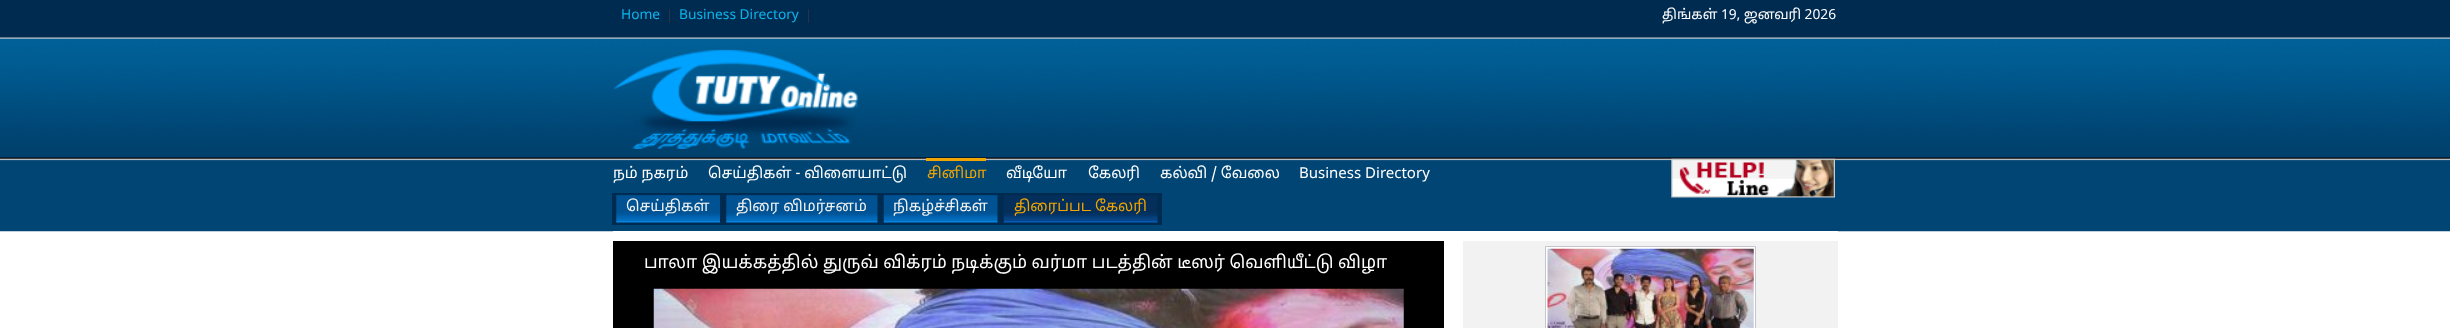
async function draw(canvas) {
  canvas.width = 2450
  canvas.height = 328
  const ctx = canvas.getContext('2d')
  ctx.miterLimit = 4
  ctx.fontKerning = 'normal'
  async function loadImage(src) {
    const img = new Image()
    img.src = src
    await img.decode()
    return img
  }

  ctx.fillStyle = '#fff'
  ctx.fillRect(0, 0, 2450, 328)
  ctx.fillStyle = '#002b51'
  ctx.fillRect(0, 0, 2450, 37)
  ctx.drawImage(await loadImage('image0.png'), 0, 37, 2450, 195)
  ctx.fillStyle = '#2f313f'
  ctx.fillRect(669, 9, 1, 14)
  ctx.font = '13.75px Noto Sans Tamil'
  ctx.fillStyle = '#0cb4ea'
  ctx.fillText('Home', 621, 19)
  ctx.fillStyle = '#2f313f'
  ctx.fillRect(808, 9, 1, 14)
  ctx.fillStyle = '#0cb4ea'
  ctx.fillText('Business Directory', 679, 19)
  ctx.fillStyle = '#fff'
  ctx.fillText('திங்கள் 19, ஜனவரி 2026', 1662, 19)
  ctx.drawImage(await loadImage('image1.png'), 1671, 158, 164, 40)
  ctx.drawImage(await loadImage('image2.png'), 613, 49, 246, 100)
  ctx.font = '15px Noto Sans Tamil'
  ctx.fillText('நம் நகரம்', 613, 178)
  ctx.fillStyle = '#f2a500'
  ctx.fillRect(926, 158, 60, 3)
  ctx.fillText('சினிமா', 927, 178)
  ctx.fillStyle = '#002b51'
  ctx.fillRect(612, 193, 550, 32)
  ctx.drawImage(await loadImage('image3.png'), 616, 194, 104, 29)
  ctx.fillStyle = '#f2f2f2'
  ctx.fillText('செய்திகள்', 626, 211)
  ctx.drawImage(await loadImage('image4.png'), 726, 194, 152, 29)
  ctx.fillText('திரை விமர்சனம்', 736, 211)
  ctx.drawImage(await loadImage('image5.png'), 883, 194, 115, 29)
  ctx.fillText('நிகழ்ச்சிகள்', 893, 211)
  ctx.drawImage(await loadImage('image6.png'), 1003, 195, 155, 28)
  ctx.fillStyle = '#f2a500'
  ctx.fillText('திரைப்பட கேலரி', 1014, 211)
  ctx.fillStyle = '#fff'
  ctx.fillText('செய்திகள் - விளையாட்டு', 708, 178)
  ctx.fillText('வீடியோ', 1006, 178)
  ctx.fillText('கேலரி', 1088, 178)
  ctx.fillText('கல்வி / வேலை', 1160, 178)
  ctx.fillText('Business Directory', 1299, 178)
  ctx.fillRect(613, 231, 1225, 1)
  ctx.fillStyle = '#000'
  ctx.fillRect(613, 241, 831, 87)
  ctx.font = '17.5px Noto Sans Tamil'
  ctx.fillStyle = '#fff'
  ctx.fillText('பாலா இயக்கத்தில் துருவ் விக்ரம் நடிக்கும் வர்மா படத்தின் டீஸர் வெளியீட்டு விழா', 644, 268)
  ctx.drawImage(await loadImage('image7.png'), 653, 288, 751, 40)
  ctx.fillStyle = '#f2f2f2'
  ctx.fillRect(1463, 241, 375, 87)
  ctx.fillStyle = '#fff'
  ctx.beginPath()
  ctx.rect(1545.5, 246.5, 210, 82)
  ctx.fill()
  ctx.strokeStyle = '#c5c6cb'
  ctx.stroke()
  ctx.drawImage(await loadImage('image8.png'), 1547, 248, 207, 80)
}

draw(document.querySelector('canvas'))
